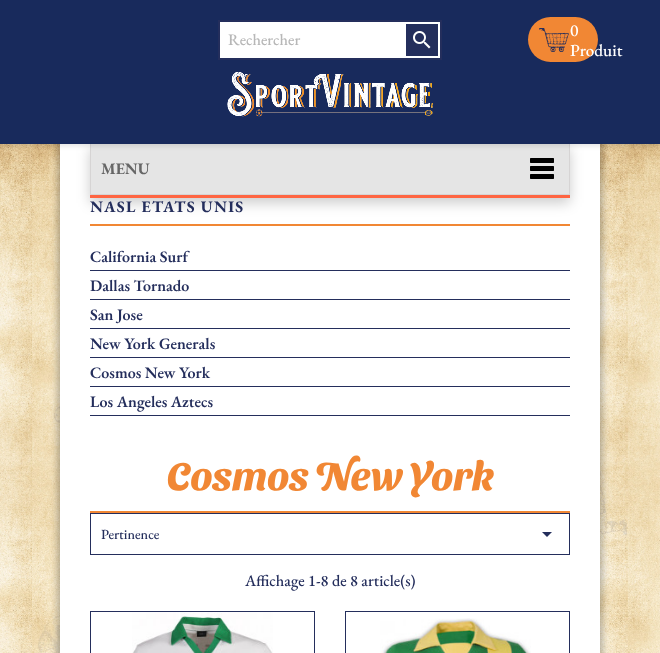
async function draw(canvas) {
  canvas.width = 660
  canvas.height = 653
  const ctx = canvas.getContext('2d')
  ctx.miterLimit = 4
  ctx.fontKerning = 'normal'
  async function loadImage(src) {
    const img = new Image()
    img.src = src
    await img.decode()
    return img
  }

  ctx.fillStyle = '#fff'
  ctx.fillRect(0, 0, 660, 653)
  ctx.drawImage(await loadImage('image3.png'), 0, 144, 660, 509)
  ctx.fillStyle = '#00000040'
  ctx.filter = 'blur(3px)'
  ctx.beginPath()
  ctx.rect(57, 135, 546, 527)
  ctx.fill()
  ctx.filter = 'none'
  ctx.fillStyle = '#fff'
  ctx.fillRect(60, 144, 540, 509)
  ctx.fillStyle = '#00000033'
  ctx.filter = 'blur(6.5px)'
  ctx.beginPath()
  ctx.rect(90, 149, 480, 54)
  ctx.fill()
  ctx.filter = 'none'
  ctx.fillStyle = '#d6d4d4'
  ctx.fillRect(569, 144, 1, 51)
  ctx.fillRect(90, 194, 480, 1)
  ctx.fillRect(90, 144, 1, 51)
  ctx.fillStyle = '#e5e5e5'
  ctx.fillRect(91, 144, 478, 50)
  ctx.fillStyle = '#0000001c'
  ctx.filter = 'blur(2.5px)'
  ctx.beginPath()
  ctx.rect(0, 2, 660, 144)
  ctx.fill()
  ctx.filter = 'none'
  ctx.fillStyle = '#182a5c'
  ctx.fillRect(0, 0, 660, 144)
  ctx.fillStyle = '#fff'
  ctx.beginPath()
  ctx.rect(219, 21, 222, 38)
  ctx.fill()
  ctx.strokeStyle = '#242e5c'
  ctx.lineWidth = 2
  ctx.stroke()
  ctx.font = '500 16px EB Garamond'
  ctx.fillStyle = '#b7b7b7'
  ctx.fillText('Rechercher', 228, 45)
  ctx.fillStyle = '#242e5c'
  ctx.fillRect(406, 24, 32, 32)
  ctx.drawImage(await loadImage('image0.png'), 413, 31, 18, 18)
  ctx.fillStyle = '#f18734'
  ctx.beginPath()
  ctx.roundRect(528, 17, 70, 45, 22.5)
  ctx.fill()
  ctx.drawImage(await loadImage('image1.png'), 539, 28, 30, 24)
  ctx.font = '500 17px EB Garamond'
  ctx.fillStyle = '#fff'
  ctx.fillText('0', 570, 36)
  ctx.fillText('Produit', 570, 56)
  ctx.drawImage(await loadImage('image2.png'), 227, 72, 206, 45)
  ctx.fillStyle = '#ff6542'
  ctx.fillRect(90, 195, 480, 3)
  ctx.drawImage(await loadImage('image4.png'), 530, 158, 24, 21)
  ctx.font = 'bold 16px EB Garamond'
  ctx.fillStyle = '#666'
  ctx.fillText('MENU', 101, 174)
  ctx.fillStyle = '#f18734'
  ctx.fillRect(90, 224, 480, 2)
  ctx.letterSpacing = '1.25px'
  ctx.fillStyle = '#242e5c'
  ctx.fillText('NASL ETATS UNIS', 90, 212)
  ctx.fillRect(90, 270, 480, 1)
  ctx.letterSpacing = '0px'
  ctx.font = '600 16px EB Garamond'
  ctx.fillText('California Surf', 90, 262)
  ctx.fillRect(90, 299, 480, 1)
  ctx.fillText('Dallas Tornado', 90, 291)
  ctx.fillRect(90, 328, 480, 1)
  ctx.fillText('San Jose', 90, 320)
  ctx.fillRect(90, 357, 480, 1)
  ctx.fillText('New York Generals', 90, 349)
  ctx.fillRect(90, 386, 480, 1)
  ctx.fillText('Cosmos New York', 90, 378)
  ctx.fillRect(90, 415, 480, 1)
  ctx.fillText('Los Angeles Aztecs', 90, 407)
  ctx.fillStyle = '#f18734'
  ctx.fillRect(90, 511, 480, 2)
  ctx.font = '300 40px Sansita Swashed'
  ctx.fillText('Cosmos New York', 167, 490)
  ctx.lineWidth = 1
  ctx.strokeRect(90.5, 513.5, 479, 41)
  ctx.font = '500 14px EB Garamond'
  ctx.fillStyle = '#242e5c'
  ctx.fillText('Pertinence', 101, 539)
  ctx.beginPath()
  ctx.moveTo(542, 532)
  ctx.lineTo(552, 532)
  ctx.lineTo(547, 537)
  ctx.closePath()
  ctx.fill()
  ctx.font = '500 16px EB Garamond'
  ctx.fillText('Affichage 1-8 de 8 article(s)', 245, 586)
  ctx.strokeRect(90.5, 611.5, 224, 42)
  ctx.drawImage(await loadImage('image5.png'), 132, 612, 141, 41)
  ctx.strokeRect(345.5, 611.5, 224, 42)
  ctx.drawImage(await loadImage('image6.png'), 380, 618, 151, 35)
}

draw(document.querySelector('canvas'))
